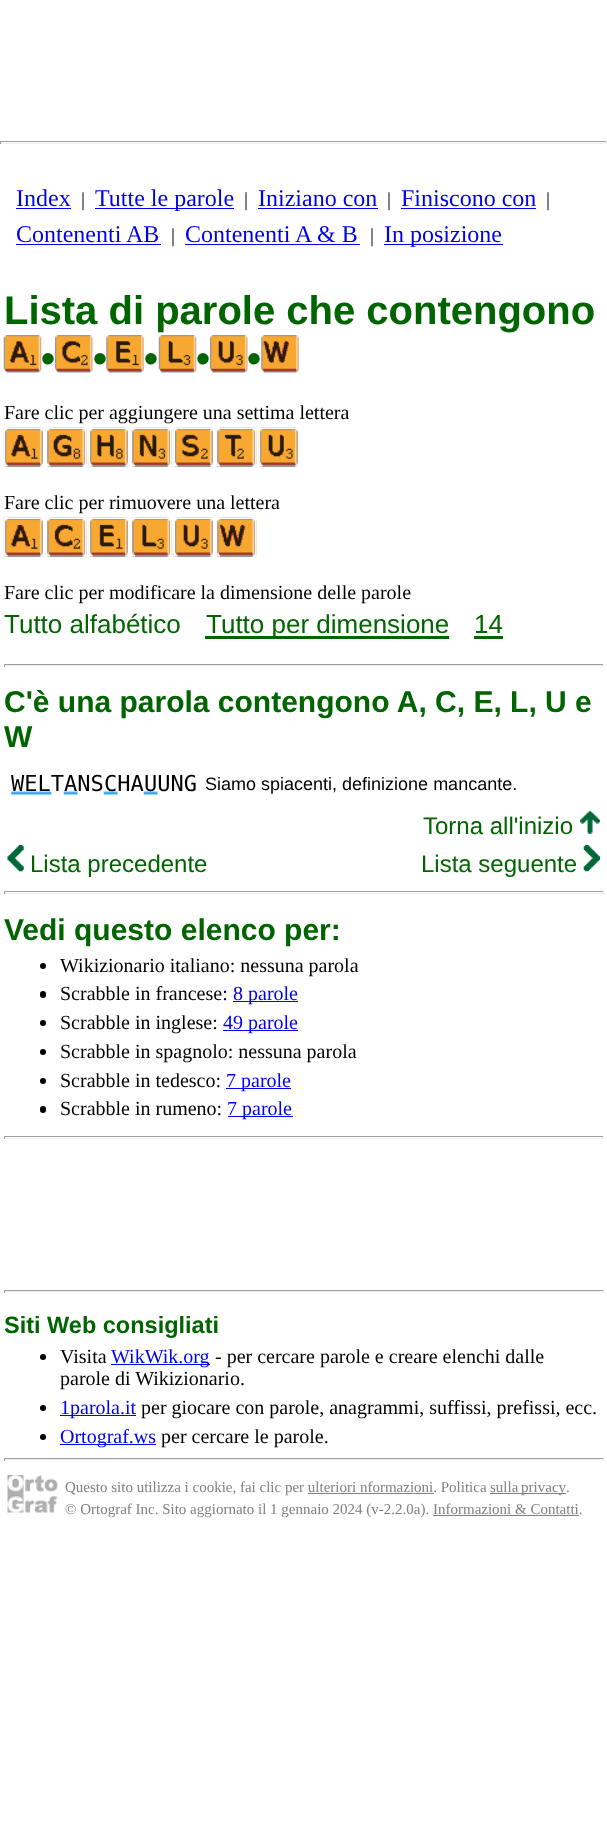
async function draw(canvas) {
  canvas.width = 607
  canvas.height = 1825
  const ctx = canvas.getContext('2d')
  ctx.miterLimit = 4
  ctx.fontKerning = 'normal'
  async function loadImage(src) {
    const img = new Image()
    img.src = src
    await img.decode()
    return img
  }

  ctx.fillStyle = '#fff'
  ctx.fillRect(0, 0, 607, 1825)
  ctx.fillStyle = '#9f9f9f'
  ctx.fillRect(0, 141, 607, 1)
  ctx.fillStyle = '#eee'
  ctx.fillRect(606, 141, 1, 3)
  ctx.fillRect(0, 143, 607, 1)
  ctx.fillStyle = '#9f9f9f'
  ctx.fillRect(0, 141, 1, 3)
  ctx.font = '24px Liberation Serif'
  ctx.fillStyle = '#00e'
  ctx.fillText('Index', 16, 206)
  ctx.fillRect(16, 208, 55, 1)
  ctx.font = '20px Liberation Serif'
  ctx.fillStyle = '#000'
  ctx.fillText('|', 81, 206)
  ctx.fillStyle = '#00e'
  ctx.fillRect(95, 208, 139, 1)
  ctx.font = '24px Liberation Serif'
  ctx.fillText('Tutte le parole', 95, 206)
  ctx.font = '20px Liberation Serif'
  ctx.fillStyle = '#000'
  ctx.fillText('|', 244, 206)
  ctx.font = '24px Liberation Serif'
  ctx.fillStyle = '#00e'
  ctx.fillText('Iniziano con', 258, 206)
  ctx.fillRect(258, 208, 120, 1)
  ctx.font = '20px Liberation Serif'
  ctx.fillStyle = '#000'
  ctx.fillText('|', 387, 206)
  ctx.font = '24px Liberation Serif'
  ctx.fillStyle = '#00e'
  ctx.fillText('Finiscono con', 401, 206)
  ctx.fillRect(401, 208, 135, 1)
  ctx.font = '20px Liberation Serif'
  ctx.fillStyle = '#000'
  ctx.fillText('|', 546, 206)
  ctx.font = '24px Liberation Serif'
  ctx.fillStyle = '#00e'
  ctx.fillText('Contenenti AB', 16, 242)
  ctx.fillRect(16, 244, 145, 1)
  ctx.font = '20px Liberation Serif'
  ctx.fillStyle = '#000'
  ctx.fillText('|', 171, 242)
  ctx.font = '24px Liberation Serif'
  ctx.fillStyle = '#00e'
  ctx.fillText('Contenenti A & B', 185, 242)
  ctx.fillRect(185, 244, 175, 1)
  ctx.font = '20px Liberation Serif'
  ctx.fillStyle = '#000'
  ctx.fillText('|', 370, 242)
  ctx.fillStyle = '#00e'
  ctx.fillRect(384, 244, 119, 1)
  ctx.font = '24px Liberation Serif'
  ctx.fillText('In posizione', 384, 242)
  ctx.font = 'bold 40px Liberation Sans'
  ctx.fillStyle = '#006400'
  ctx.fillText('Lista di parole che contengono', 4, 324)
  ctx.drawImage(await loadImage('image0.png'), 3, 335, 39, 38)
  ctx.fillText('•', 41, 372)
  ctx.drawImage(await loadImage('image1.png'), 55, 335, 38, 38)
  ctx.fillText('•', 93, 372)
  ctx.drawImage(await loadImage('image2.png'), 106, 335, 38, 38)
  ctx.fillText('•', 144, 372)
  ctx.drawImage(await loadImage('image3.png'), 158, 335, 39, 38)
  ctx.fillText('•', 196, 372)
  ctx.drawImage(await loadImage('image4.png'), 210, 335, 38, 38)
  ctx.fillText('•', 247, 372)
  ctx.drawImage(await loadImage('image5.png'), 261, 335, 38, 38)
  ctx.font = '20px Liberation Serif'
  ctx.fillStyle = '#000'
  ctx.fillText('Fare clic per aggiungere una settima lettera', 4, 419)
  ctx.drawImage(await loadImage('image6.png'), 3, 427, 41, 41)
  ctx.strokeStyle = '#fff'
  ctx.strokeRect(4.5, 428.5, 39, 39)
  ctx.drawImage(await loadImage('image7.png'), 46, 427, 41, 41)
  ctx.strokeRect(46.5, 428.5, 39, 39)
  ctx.drawImage(await loadImage('image8.png'), 88, 427, 41, 41)
  ctx.strokeRect(89.5, 428.5, 39, 39)
  ctx.drawImage(await loadImage('image9.png'), 131, 427, 41, 41)
  ctx.strokeRect(131.5, 428.5, 39, 39)
  ctx.drawImage(await loadImage('image10.png'), 173, 427, 41, 41)
  ctx.strokeRect(174.5, 428.5, 39, 39)
  ctx.drawImage(await loadImage('image11.png'), 216, 427, 41, 41)
  ctx.strokeRect(216.5, 428.5, 39, 39)
  ctx.drawImage(await loadImage('image12.png'), 258, 427, 41, 41)
  ctx.strokeRect(259.5, 428.5, 39, 39)
  ctx.fillText('Fare clic per rimuovere una lettera', 4, 509)
  ctx.drawImage(await loadImage('image6.png'), 3, 517, 41, 41)
  ctx.strokeRect(4.5, 518.5, 39, 39)
  ctx.drawImage(await loadImage('image13.png'), 46, 517, 41, 41)
  ctx.strokeRect(46.5, 518.5, 39, 39)
  ctx.drawImage(await loadImage('image14.png'), 88, 517, 41, 41)
  ctx.strokeRect(89.5, 518.5, 39, 39)
  ctx.drawImage(await loadImage('image15.png'), 131, 517, 41, 41)
  ctx.strokeRect(131.5, 518.5, 39, 39)
  ctx.drawImage(await loadImage('image16.png'), 173, 517, 41, 41)
  ctx.strokeRect(174.5, 518.5, 39, 39)
  ctx.drawImage(await loadImage('image17.png'), 216, 517, 41, 41)
  ctx.strokeRect(216.5, 518.5, 39, 39)
  ctx.fillText('Fare clic per modificare la dimensione delle parole', 4, 599)
  ctx.font = '26px Liberation Sans'
  ctx.fillStyle = '#006400'
  ctx.fillText('Tutto alfabético', 4, 633)
  ctx.fillRect(205, 636, 244, 3)
  ctx.fillText('Tutto per dimensione', 206, 633)
  ctx.fillText('14', 474, 633)
  ctx.fillRect(474, 636, 29, 3)
  ctx.fillStyle = '#9f9f9f'
  ctx.fillRect(4, 664, 600, 1)
  ctx.fillStyle = '#eee'
  ctx.fillRect(603, 664, 1, 3)
  ctx.fillRect(4, 665, 600, 1)
  ctx.fillStyle = '#9f9f9f'
  ctx.fillRect(4, 664, 1, 3)
  ctx.font = 'bold 30px Liberation Sans'
  ctx.fillStyle = '#006400'
  ctx.fillText('C\'è una parola contengono A, C, E, L, U e', 4, 712)
  ctx.fillText('W', 4, 747)
  ctx.drawImage(await loadImage('image18.png'), 11, 791, 41, 5)
  ctx.font = '22px DejaVu Sans Mono'
  ctx.fillStyle = '#000'
  ctx.fillText('WELTANS', 11, 791)
  ctx.drawImage(await loadImage('image19.png'), 103, 791, 15, 5)
  ctx.fillText('CHA', 104, 791)
  ctx.drawImage(await loadImage('image19.png'), 143, 791, 15, 5)
  ctx.fillText('UUNG', 144, 791)
  ctx.drawImage(await loadImage('image19.png'), 63, 791, 15, 5)
  ctx.font = '18px Liberation Sans'
  ctx.fillText('Siamo spiacenti, definizione mancante.', 205, 790)
  ctx.font = '24px Liberation Sans'
  ctx.fillStyle = '#006400'
  ctx.fillText('Torna all\'inizio', 423, 834)
  ctx.drawImage(await loadImage('image20.png'), 580, 811, 20, 23)
  ctx.drawImage(await loadImage('image21.png'), 7, 845, 17, 27)
  ctx.fillText('Lista precedente', 30, 872)
  ctx.fillText('Lista seguente', 421, 872)
  ctx.drawImage(await loadImage('image22.png'), 583, 845, 17, 27)
  ctx.fillStyle = '#9f9f9f'
  ctx.fillRect(4, 891, 600, 1)
  ctx.fillStyle = '#eee'
  ctx.fillRect(603, 891, 1, 3)
  ctx.fillRect(4, 893, 600, 1)
  ctx.fillStyle = '#9f9f9f'
  ctx.fillRect(4, 891, 1, 3)
  ctx.font = 'bold 30px Liberation Sans'
  ctx.fillStyle = '#006400'
  ctx.fillText('Vedi questo elenco per:', 4, 940)
  ctx.fillStyle = '#000'
  ctx.beginPath()
  ctx.arc(43, 966, 3, 0, 2 * Math.PI)
  ctx.fill()
  ctx.font = '20px Liberation Serif'
  ctx.fillText('Wikizionario italiano: nessuna parola', 60, 972)
  ctx.beginPath()
  ctx.roundRect(40, 991, 6, 7, 3)
  ctx.fill()
  ctx.fillText('Scrabble in francese:', 60, 1000)
  ctx.fillStyle = '#00e'
  ctx.fillRect(233, 1001, 65, 1)
  ctx.fillText('8 parole', 233, 1000)
  ctx.fillStyle = '#000'
  ctx.beginPath()
  ctx.arc(43, 1023, 3, 0, 2 * Math.PI)
  ctx.fill()
  ctx.fillText('Scrabble in inglese:', 60, 1029)
  ctx.fillStyle = '#00e'
  ctx.fillRect(223, 1030, 75, 1)
  ctx.fillText('49 parole', 223, 1029)
  ctx.fillStyle = '#000'
  ctx.beginPath()
  ctx.arc(43, 1052, 3, 0, 2 * Math.PI)
  ctx.fill()
  ctx.fillText('Scrabble in spagnolo: nessuna parola', 60, 1058)
  ctx.beginPath()
  ctx.arc(43, 1081, 3, 0, 2 * Math.PI)
  ctx.fill()
  ctx.fillText('Scrabble in tedesco:', 60, 1087)
  ctx.fillStyle = '#00e'
  ctx.fillRect(226, 1088, 65, 1)
  ctx.fillText('7 parole', 226, 1087)
  ctx.fillStyle = '#000'
  ctx.beginPath()
  ctx.roundRect(40, 1106, 6, 7, 3)
  ctx.fill()
  ctx.fillText('Scrabble in rumeno:', 60, 1115)
  ctx.fillStyle = '#00e'
  ctx.fillRect(228, 1116, 65, 1)
  ctx.fillText('7 parole', 227, 1115)
  ctx.fillStyle = '#9f9f9f'
  ctx.fillRect(4, 1136, 600, 1)
  ctx.fillStyle = '#eee'
  ctx.fillRect(603, 1136, 1, 3)
  ctx.fillRect(4, 1138, 600, 1)
  ctx.fillStyle = '#9f9f9f'
  ctx.fillRect(4, 1136, 1, 3)
  ctx.fillRect(4, 1290, 600, 1)
  ctx.fillStyle = '#eee'
  ctx.fillRect(603, 1290, 1, 3)
  ctx.fillRect(4, 1291, 600, 1)
  ctx.fillStyle = '#9f9f9f'
  ctx.fillRect(4, 1290, 1, 3)
  ctx.font = 'bold 23.5px Liberation Sans'
  ctx.fillStyle = '#006400'
  ctx.fillText('Siti Web consigliati', 4, 1333)
  ctx.fillStyle = '#000'
  ctx.beginPath()
  ctx.arc(43, 1357, 3, 0, 2 * Math.PI)
  ctx.fill()
  ctx.font = '20px Liberation Serif'
  ctx.fillText('Visita', 60, 1363)
  ctx.fillStyle = '#00e'
  ctx.fillRect(111, 1364, 99, 1)
  ctx.fillText('WikWik.org', 111, 1363)
  ctx.fillStyle = '#000'
  ctx.fillText('- per cercare parole e creare elenchi dalle', 215, 1363)
  ctx.fillText('parole di Wikizionario.', 60, 1385)
  ctx.beginPath()
  ctx.arc(43, 1408, 3, 0, 2 * Math.PI)
  ctx.fill()
  ctx.fillStyle = '#00e'
  ctx.fillRect(60, 1415, 76, 1)
  ctx.fillText('1parola.it', 60, 1414)
  ctx.fillStyle = '#000'
  ctx.fillText('per giocare con parole, anagrammi, suffissi, prefissi, ecc.', 141, 1414)
  ctx.beginPath()
  ctx.arc(43, 1437, 3, 0, 2 * Math.PI)
  ctx.fill()
  ctx.fillStyle = '#00e'
  ctx.fillRect(60, 1444, 96, 1)
  ctx.fillText('Ortograf.ws', 60, 1443)
  ctx.fillStyle = '#000'
  ctx.fillText('per cercare le parole.', 161, 1443)
  ctx.fillStyle = '#9f9f9f'
  ctx.fillRect(4, 1458, 600, 1)
  ctx.fillStyle = '#eee'
  ctx.fillRect(603, 1458, 1, 3)
  ctx.fillRect(4, 1459, 600, 1)
  ctx.fillStyle = '#9f9f9f'
  ctx.fillRect(4, 1458, 1, 3)
  ctx.drawImage(await loadImage('image23.png'), 7, 1475, 51, 38)
  ctx.font = '15px Liberation Serif'
  ctx.fillStyle = '#808080'
  ctx.fillText('Questo sito utilizza i cookie, fai clic per ulteriori nformazioni. Politica', 65, 1492)
  ctx.fillRect(308, 1493, 126, 1)
  ctx.fillRect(490, 1493, 76, 1)
  ctx.wordSpacing = '-1px'
  ctx.fillText('sulla privacy', 490, 1492)
  ctx.wordSpacing = '0px'
  ctx.fillText('.', 566, 1492)
  ctx.fillText('© Ortograf Inc. Sito aggiornato il 1 gennaio 2024 (v-2.2.0a). Informazioni & Contatti.', 65, 1514)
  ctx.fillRect(433, 1515, 146, 1)
}

draw(document.querySelector('canvas'))
